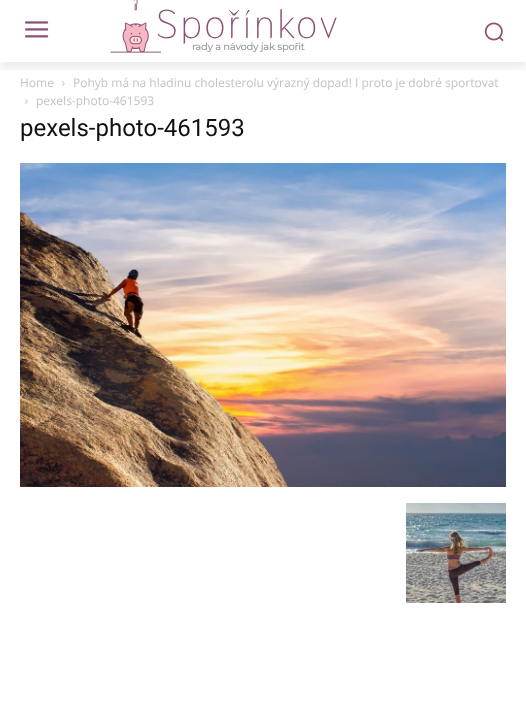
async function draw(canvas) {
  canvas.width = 526
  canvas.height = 702
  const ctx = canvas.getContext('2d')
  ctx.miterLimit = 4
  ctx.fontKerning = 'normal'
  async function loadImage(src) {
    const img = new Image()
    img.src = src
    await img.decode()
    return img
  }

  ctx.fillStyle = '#fff'
  ctx.fillRect(0, 0, 526, 702)
  ctx.drawImage(await loadImage('image0.png'), 25, 21, 24, 17)
  ctx.drawImage(await loadImage('image1.png'), 110, 0, 52, 53)
  ctx.drawImage(await loadImage('image2.png'), 484, 22, 20, 20)
  ctx.save()
  ctx.beginPath()
  ctx.rect(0, 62, 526, 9)
  ctx.clip()
  ctx.fillStyle = '#00000014'
  ctx.filter = 'blur(4px)'
  ctx.beginPath()
  ctx.rect(0, 6, 526, 62)
  ctx.fill()
  ctx.filter = 'none'
  ctx.restore()
  ctx.letterSpacing = '3px'
  ctx.font = '40px Thasadith'
  ctx.fillStyle = '#8e5175'
  ctx.fillText('Spořínkov', 156, 38)
  ctx.letterSpacing = '-0.3px'
  ctx.font = '500 10px Montserrat'
  ctx.fillStyle = '#9b9b9b'
  ctx.fillText('rady a návody jak spořit', 192, 50)
  ctx.letterSpacing = '0px'
  ctx.font = '12px Open Sans'
  ctx.fillStyle = '#c3c3c3'
  ctx.fillText('Home', 20, 87)
  ctx.drawImage(await loadImage('image3.png'), 62, 81, 3, 5)
  ctx.fillText('Pohyb má na hladinu cholesterolu výrazný dopad! I proto je dobré sportovat', 73, 87)
  ctx.drawImage(await loadImage('image3.png'), 25, 99, 3, 5)
  ctx.fillText('pexels-photo-461593', 36, 105)
  ctx.font = '24px Roboto'
  ctx.fillStyle = '#111'
  ctx.fillText('pexels-photo-461593', 20, 136)
  ctx.drawImage(await loadImage('image4.png'), 20, 163, 486, 324)
  ctx.drawImage(await loadImage('image5.png'), 406, 503, 100, 100)
}

draw(document.querySelector('canvas'))
